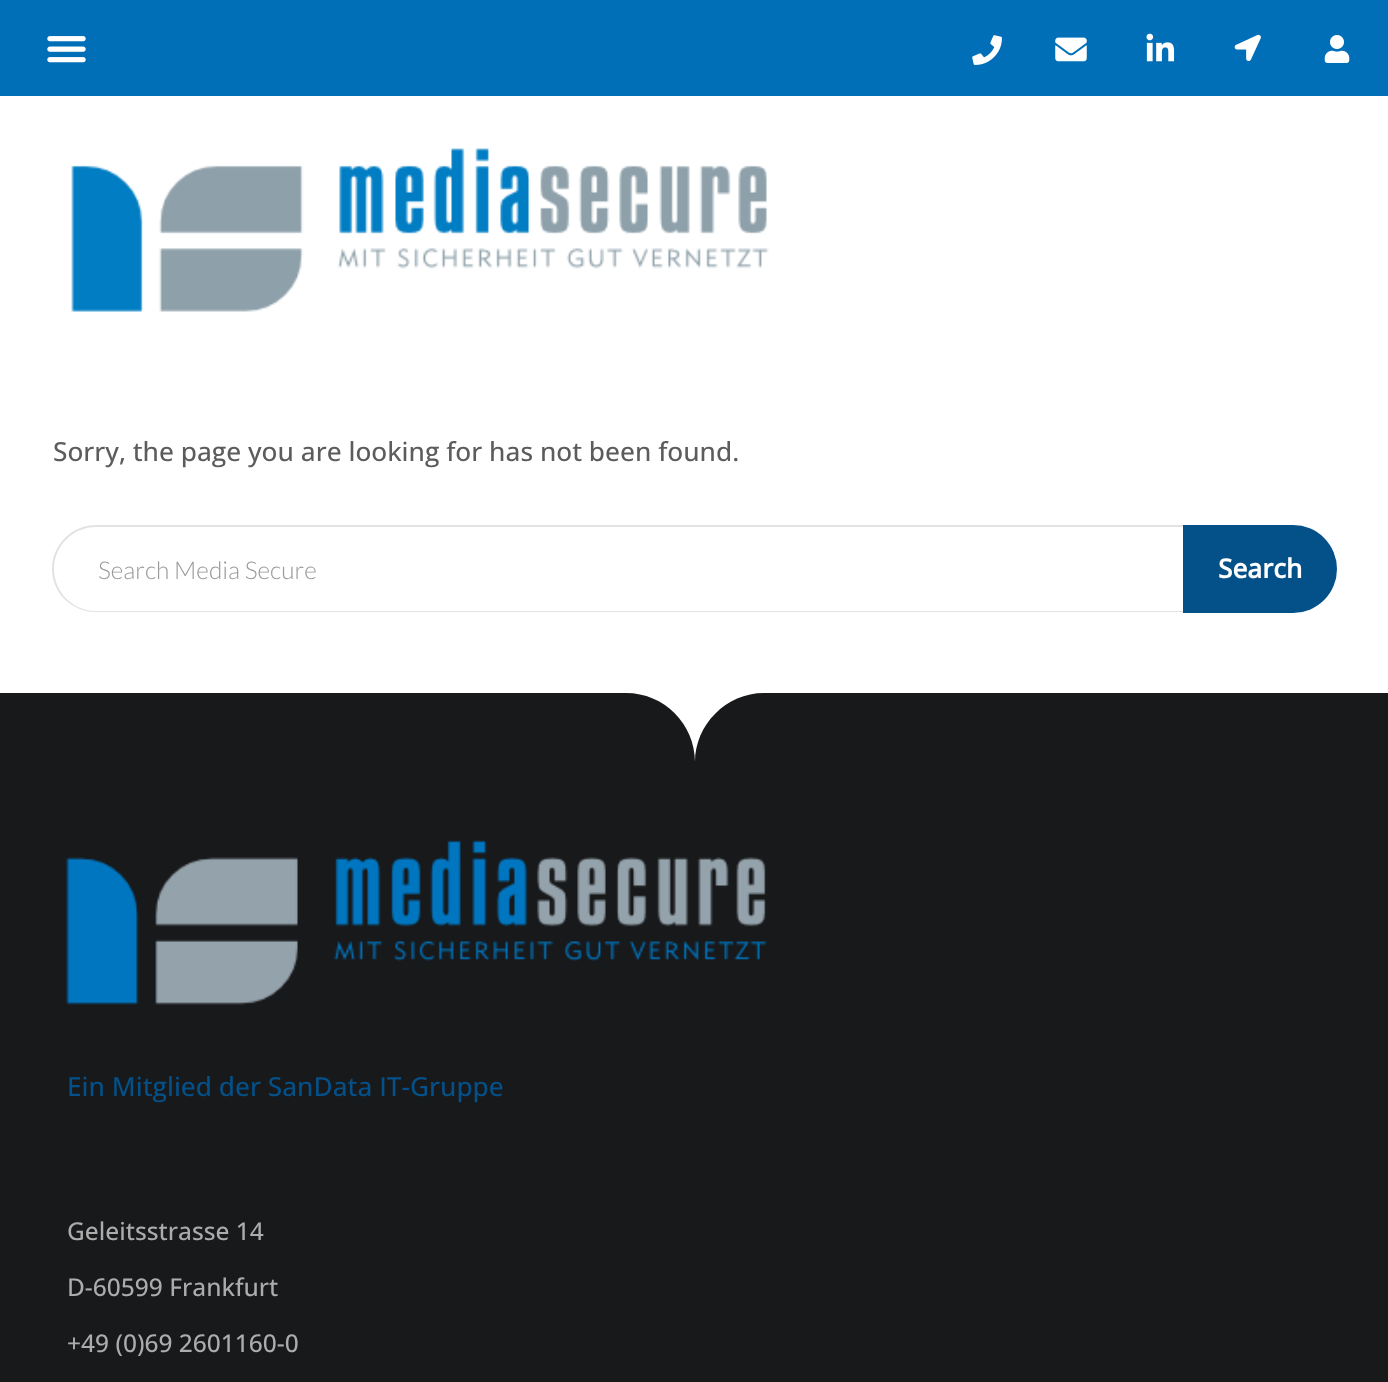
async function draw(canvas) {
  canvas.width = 1388
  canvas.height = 1382
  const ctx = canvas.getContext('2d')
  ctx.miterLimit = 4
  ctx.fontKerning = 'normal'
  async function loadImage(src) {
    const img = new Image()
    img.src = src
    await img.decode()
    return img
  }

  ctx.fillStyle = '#fff'
  ctx.fillRect(0, 0, 1388, 1382)
  ctx.fillStyle = '#006fb7'
  ctx.fillRect(0, 0, 1388, 96)
  ctx.drawImage(await loadImage('image0.png'), 47, 36, 39, 27)
  ctx.drawImage(await loadImage('image1.png'), 972, 35, 30, 30)
  ctx.drawImage(await loadImage('image2.png'), 1055, 37, 32, 25)
  ctx.drawImage(await loadImage('image3.png'), 1146, 33, 29, 29)
  ctx.drawImage(await loadImage('image4.png'), 1234, 34, 27, 27)
  ctx.drawImage(await loadImage('image5.png'), 1324, 35, 26, 28)
  ctx.drawImage(await loadImage('image6.png'), 71, 148, 698, 164)
  ctx.font = '500 26.25px Open Sans'
  ctx.fillStyle = '#5c5c5c'
  ctx.fillText('Sorry, the page you are looking for has not been found.', 53, 461)
  ctx.fillStyle = '#e2e2e2'
  ctx.beginPath()
  ctx.moveTo(96, 525)
  ctx.lineTo(1183, 525)
  ctx.lineTo(1183, 612)
  ctx.lineTo(96, 612)
  ctx.bezierCurveTo(72, 612, 52, 593, 52, 569)
  ctx.bezierCurveTo(52, 545, 72, 525, 96, 525)
  ctx.closePath()
  ctx.moveTo(96, 527)
  ctx.lineTo(1183, 527)
  ctx.lineTo(1183, 611)
  ctx.lineTo(96, 611)
  ctx.bezierCurveTo(73, 611, 54, 592, 54, 569)
  ctx.bezierCurveTo(54, 546, 73, 527, 96, 527)
  ctx.closePath()
  ctx.fill('evenodd')
  ctx.font = '300 24.5px Lato'
  ctx.fillStyle = '#999'
  ctx.fillText('Search Media Secure', 98, 579)
  ctx.fillStyle = '#045089'
  ctx.beginPath()
  ctx.roundRect(1183, 525, 154, 88, [0, 44, 44, 0])
  ctx.fill()
  ctx.font = 'bold 26.25px Open Sans'
  ctx.fillStyle = '#fff'
  ctx.fillText('Search', 1218, 578)
  ctx.fillStyle = '#18191b'
  ctx.fillRect(0, 693, 1388, 689)
  ctx.fillStyle = '#fff'
  ctx.beginPath()
  ctx.moveTo(-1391, 681)
  ctx.lineTo(-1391, 693)
  ctx.lineTo(626, 693)
  ctx.bezierCurveTo(664, 693, 695, 724, 695, 762)
  ctx.bezierCurveTo(695, 725, 726, 693, 764, 693)
  ctx.lineTo(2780, 693)
  ctx.lineTo(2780, 681)
  ctx.closePath()
  ctx.fill()
  ctx.drawImage(await loadImage('image7.png'), 66, 839, 701, 166)
  ctx.font = '500 26.25px Open Sans'
  ctx.fillStyle = '#045089'
  ctx.fillText('Ein Mitglied der SanData IT-Gruppe', 67, 1096)
  ctx.font = '500 24.5px Open Sans'
  ctx.fillStyle = '#acacac'
  ctx.fillText('Geleitsstrasse 14', 67, 1240)
  ctx.fillText('D-60599 Frankfurt', 67, 1296)
  ctx.fillText('+49 (0)69 2601160-0', 67, 1352)
}

draw(document.querySelector('canvas'))
